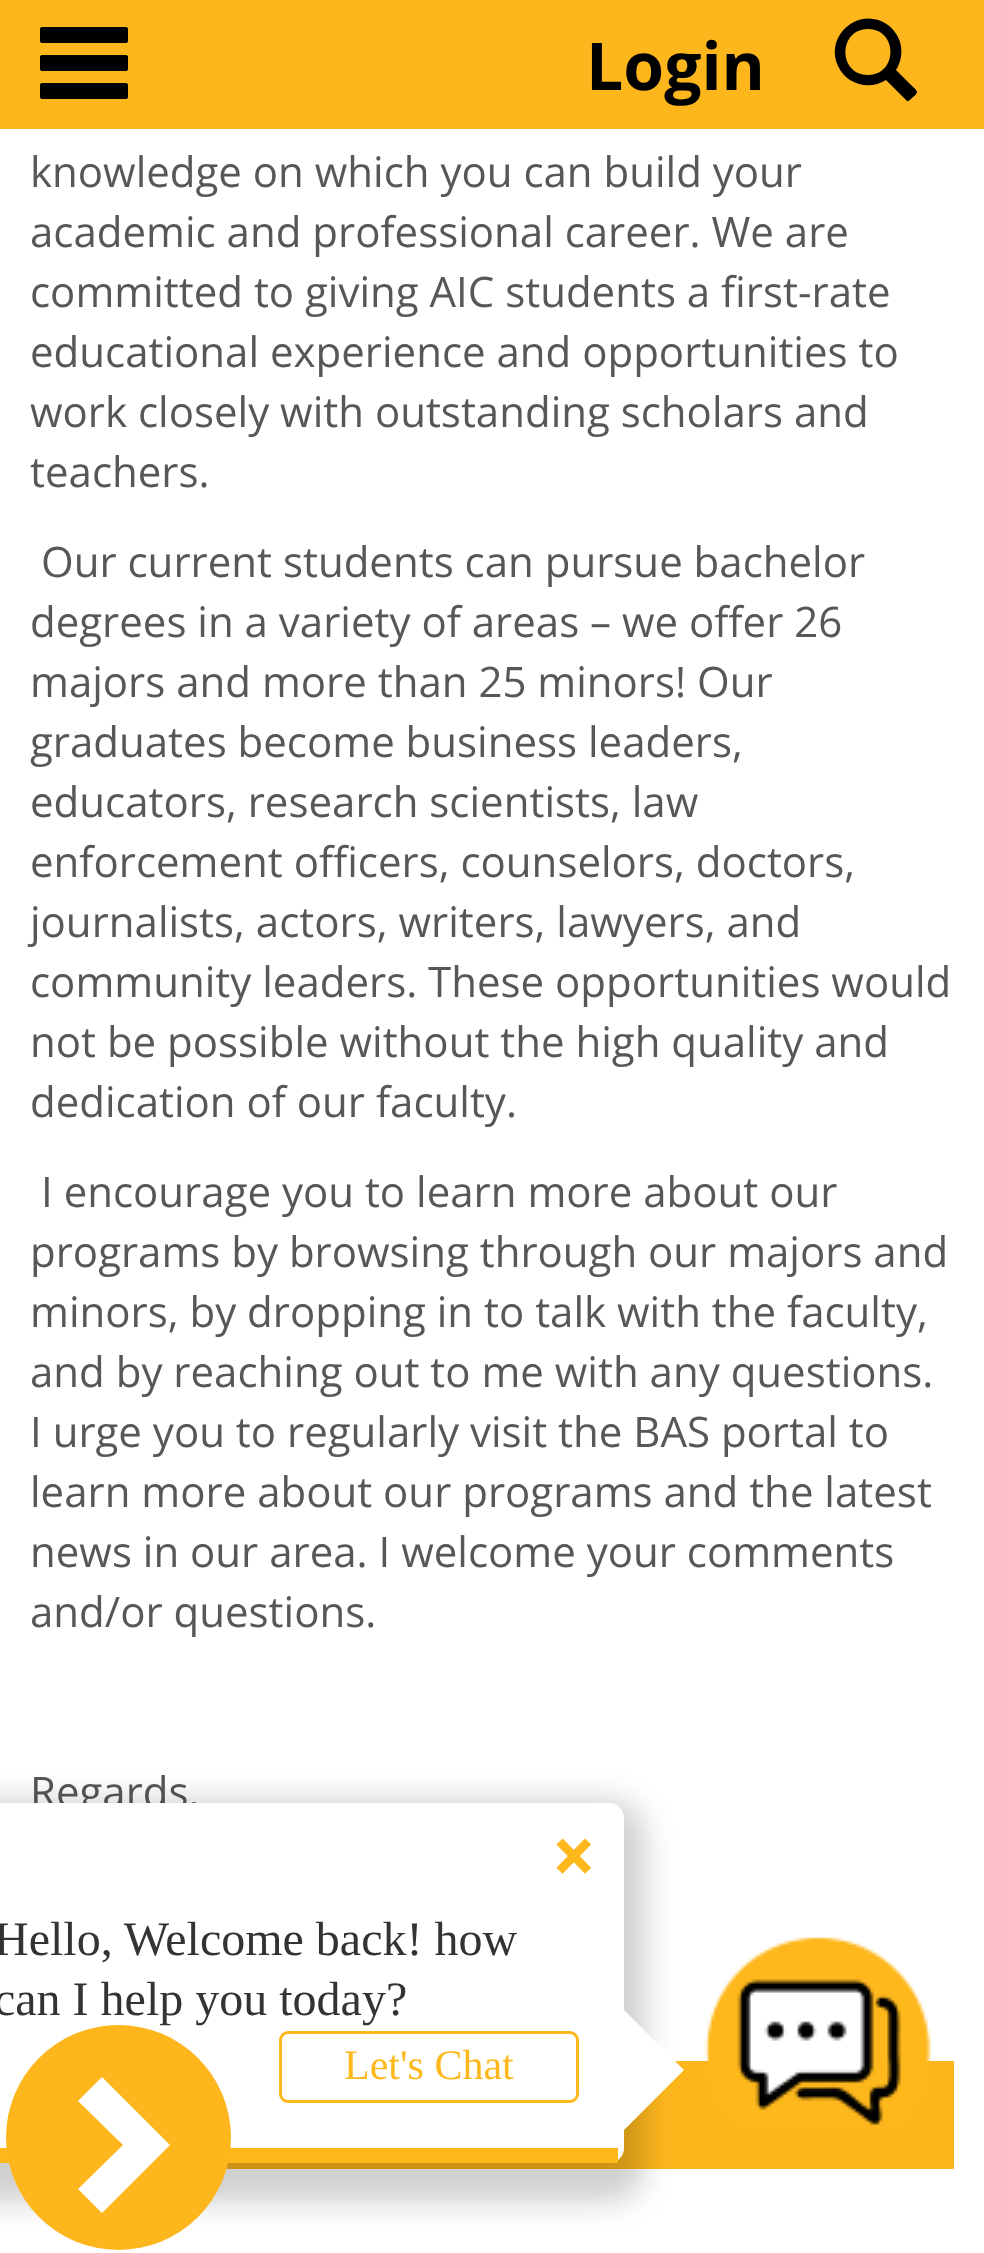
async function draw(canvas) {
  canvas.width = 984
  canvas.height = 2253
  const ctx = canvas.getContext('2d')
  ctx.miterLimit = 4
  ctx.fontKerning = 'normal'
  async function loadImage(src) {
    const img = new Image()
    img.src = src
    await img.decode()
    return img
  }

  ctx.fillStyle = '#fff'
  ctx.fillRect(0, 0, 984, 2253)
  ctx.fillStyle = '#fdb71d'
  ctx.fillRect(0, 0, 984, 129)
  ctx.drawImage(await loadImage('image0.png'), 40, 27, 88, 72)
  ctx.font = 'bold 66px Open Sans'
  ctx.fillStyle = '#000'
  ctx.fillText('Login', 586, 90)
  ctx.beginPath()
  ctx.moveTo(907, 101)
  ctx.lineTo(886, 80)
  ctx.bezierCurveTo(869, 91, 846, 84, 838, 66)
  ctx.bezierCurveTo(824, 35, 860, 5, 888, 25)
  ctx.bezierCurveTo(893, 29, 898, 35, 900, 42)
  ctx.bezierCurveTo(903, 52, 901, 62, 896, 70)
  ctx.lineTo(910, 84)
  ctx.bezierCurveTo(911, 85, 917, 90, 917, 92)
  ctx.bezierCurveTo(917, 94, 913, 97, 912, 98)
  ctx.bezierCurveTo(911, 99, 908, 102, 907, 101)
  ctx.closePath()
  ctx.moveTo(868, 75)
  ctx.bezierCurveTo(898, 75, 898, 29, 868, 29)
  ctx.bezierCurveTo(838, 29, 838, 75, 868, 75)
  ctx.closePath()
  ctx.fill()
  ctx.font = '42px Open Sans'
  ctx.fillStyle = '#575757'
  ctx.fillText('knowledge on which you can build your', 30, 187)
  ctx.fillText('academic and professional career. We are', 30, 247)
  ctx.fillText('committed to giving AIC students a first-rate', 30, 307)
  ctx.fillText('educational experience and opportunities to', 30, 367)
  ctx.fillText('work closely with outstanding scholars and', 30, 427)
  ctx.fillText('teachers.', 30, 487)
  ctx.fillText('Our current students can pursue bachelor', 41, 577)
  ctx.fillText('degrees in a variety of areas – we offer 26', 30, 637)
  ctx.fillText('majors and more than 25 minors! Our', 30, 697)
  ctx.fillText('graduates become business leaders,', 30, 757)
  ctx.fillText('educators, research scientists, law', 30, 817)
  ctx.fillText('enforcement officers, counselors, doctors,', 30, 877)
  ctx.fillText('journalists, actors, writers, lawyers, and', 30, 937)
  ctx.fillText('community leaders. These opportunities would', 30, 997)
  ctx.fillText('not be possible without the high quality and', 30, 1057)
  ctx.fillText('dedication of our faculty.', 30, 1117)
  ctx.fillText('I encourage you to learn more about our', 41, 1207)
  ctx.fillText('programs by browsing through our majors and', 30, 1267)
  ctx.fillText('minors, by dropping in to talk with the faculty,', 30, 1327)
  ctx.fillText('and by reaching out to me with any questions.', 30, 1387)
  ctx.fillText('I urge you to regularly visit the BAS portal to', 30, 1447)
  ctx.fillText('learn more about our programs and the latest', 30, 1507)
  ctx.fillText('news in our area. I welcome your comments', 30, 1567)
  ctx.fillText('and/or questions.', 30, 1627)
  ctx.fillText('Regards,', 30, 1807)
  ctx.fillStyle = '#fdb71d'
  ctx.fillRect(226, 2061, 728, 108)
  ctx.fillStyle = '#00000030'
  ctx.filter = 'blur(15px)'
  ctx.beginPath()
  ctx.roundRect(-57, 1800, 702, 402, 36)
  ctx.fill()
  ctx.filter = 'none'
  ctx.fillStyle = '#fff'
  ctx.beginPath()
  ctx.roundRect(-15, 1803, 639, 360, 15)
  ctx.fill()
  ctx.fillStyle = '#ffb81c'
  ctx.fillRect(0, 2148, 618, 15)
  ctx.font = '48px Liberation Serif'
  ctx.fillStyle = '#333'
  ctx.fillText('can I help you today?', -6, 2015)
  ctx.fillStyle = '#fdb71d'
  ctx.beginPath()
  ctx.arc(118.5, 2137.5, 112.5, 0, 2 * Math.PI)
  ctx.fill()
  ctx.fillStyle = '#fff'
  ctx.beginPath()
  ctx.moveTo(102, 2213)
  ctx.lineTo(78, 2189)
  ctx.lineTo(123, 2145)
  ctx.lineTo(78, 2101)
  ctx.lineTo(102, 2077)
  ctx.lineTo(170, 2145)
  ctx.closePath()
  ctx.fill()
  ctx.font = 'bold 75px Roboto'
  ctx.fillStyle = '#ffb81c'
  ctx.fillText('×', 554, 1881)
  ctx.font = '48px Liberation Serif'
  ctx.fillStyle = '#333'
  ctx.fillText('Hello, Welcome back! how', -6, 1955)
  ctx.beginPath()
  ctx.roundRect(280.5, 2032.5, 297, 69, 7.5)
  ctx.strokeStyle = '#ffb81c'
  ctx.lineWidth = 3
  ctx.stroke()
  ctx.font = '42px Liberation Serif'
  ctx.fillStyle = '#ffb81c'
  ctx.fillText('Let\'s Chat', 344, 2079)
  ctx.fillStyle = '#fff'
  ctx.beginPath()
  ctx.moveTo(624, 2130)
  ctx.lineTo(624, 2010)
  ctx.lineTo(684, 2070)
  ctx.closePath()
  ctx.fill()
  ctx.drawImage(await loadImage('image1.png'), 704, 1937, 227, 188)
}

draw(document.querySelector('canvas'))
